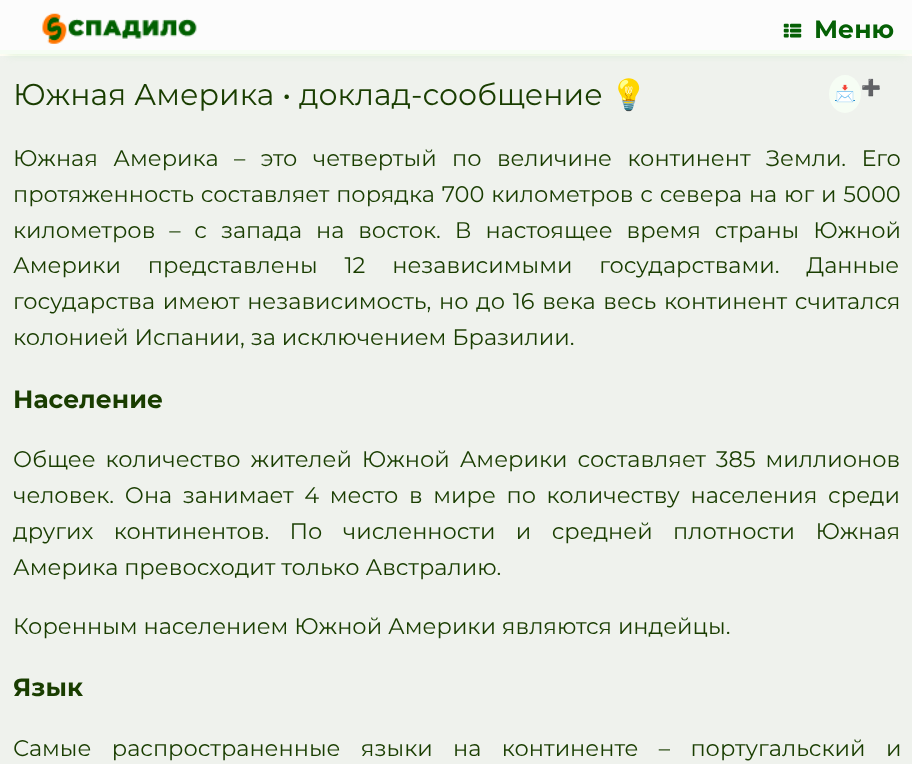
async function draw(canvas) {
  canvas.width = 912
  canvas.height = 764
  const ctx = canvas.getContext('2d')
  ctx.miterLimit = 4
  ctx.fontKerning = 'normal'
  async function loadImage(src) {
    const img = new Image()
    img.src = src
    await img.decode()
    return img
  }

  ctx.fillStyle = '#fffdf5'
  ctx.fillRect(0, 0, 912, 764)
  ctx.fillStyle = '#eff2ed'
  ctx.fillRect(0, 56, 912, 708)
  ctx.fillStyle = '#b1eab180'
  ctx.filter = 'blur(4px)'
  ctx.beginPath()
  ctx.rect(8, 15, 897, 39)
  ctx.fill()
  ctx.filter = 'none'
  ctx.fillStyle = '#fcfcfc'
  ctx.fillRect(0, 0, 912, 50)
  ctx.fillStyle = '#f6fdf4'
  ctx.fillRect(0, 50, 912, 4)
  ctx.drawImage(await loadImage('image0.png'), 42, 13, 155, 31)
  ctx.drawImage(await loadImage('image1.png'), 783, 23, 19, 15)
  ctx.font = 'bold 25px Montserrat'
  ctx.fillStyle = '#056005'
  ctx.fillText('Меню', 814, 38)
  ctx.font = '30px Montserrat'
  ctx.fillStyle = '#193d00'
  ctx.fillText('Южная Америка • доклад-сообщение', 13, 105)
  ctx.font = '30px Noto Color Emoji'
  ctx.fillText('💡', 610, 105)
  ctx.fillStyle = '#f6fdf4'
  ctx.beginPath()
  ctx.ellipse(845, 94, 16, 19, 0, 0, 2 * Math.PI)
  ctx.fill()
  ctx.fillStyle = '#248cc8'
  ctx.fillRect(835, 100, 20, 1)
  ctx.font = '16px Noto Color Emoji'
  ctx.fillText('📩', 835, 99)
  ctx.fillStyle = '#333'
  ctx.fillText('➕', 861, 93)
  ctx.wordSpacing = '9.5px'
  ctx.font = '22.5px Montserrat'
  ctx.fillStyle = '#193d00'
  ctx.fillText('Южная Америка – это четвертый по величине континент Земли. Его', 13, 166)
  ctx.wordSpacing = '0.9px'
  ctx.fillText('протяженность составляет порядка 700 километров с севера на юг и 5000', 13, 202)
  ctx.wordSpacing = '8px'
  ctx.fillText('километров – с запада на восток. В настоящее время страны Южной', 13, 238)
  ctx.wordSpacing = '21px'
  ctx.fillText('Америки представлены 12 независимыми государствами. Данные', 13, 273)
  ctx.wordSpacing = '1.75px'
  ctx.fillText('государства имеют независимость, но до 16 века весь континент считался', 13, 309)
  ctx.wordSpacing = '0px'
  ctx.fillText('колонией Испании, за исключением Бразилии.', 13, 345)
  ctx.font = 'bold 25px Montserrat'
  ctx.fillText('Население', 13, 408)
  ctx.wordSpacing = '4px'
  ctx.font = '22.5px Montserrat'
  ctx.fillText('Общее количество жителей Южной Америки составляет 385 миллионов', 13, 467)
  ctx.wordSpacing = '4.75px'
  ctx.fillText('человек. Она занимает 4 место в мире по количеству населения среди', 13, 503)
  ctx.wordSpacing = '14.5px'
  ctx.fillText('других континентов. По численности и средней плотности Южная', 13, 539)
  ctx.wordSpacing = '0px'
  ctx.fillText('Америка превосходит только Австралию.', 13, 575)
  ctx.fillText('Коренным населением Южной Америки являются индейцы.', 13, 634)
  ctx.font = 'bold 25px Montserrat'
  ctx.fillText('Язык', 13, 696)
  ctx.wordSpacing = '14.5px'
  ctx.font = '22.5px Montserrat'
  ctx.fillText('Самые распространенные языки на континенте – португальский и', 13, 756)
}

draw(document.querySelector('canvas'))
